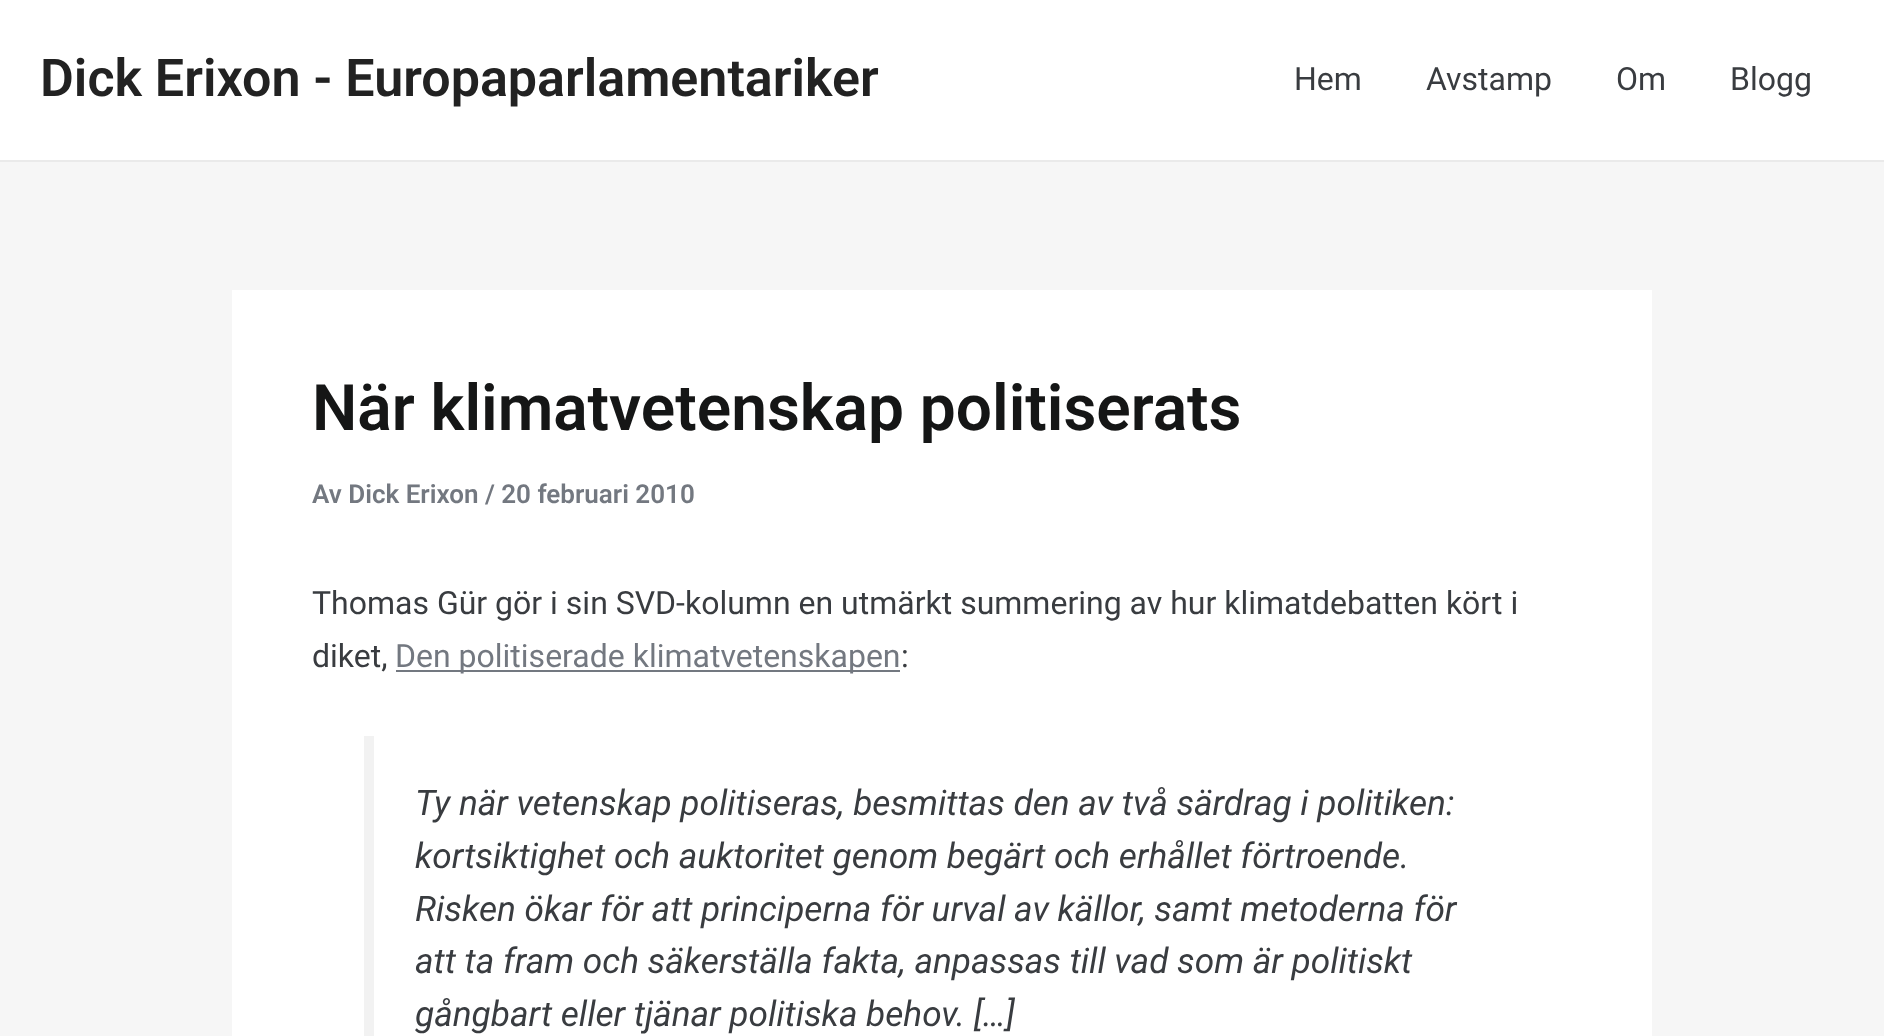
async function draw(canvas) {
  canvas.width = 1884
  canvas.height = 1036
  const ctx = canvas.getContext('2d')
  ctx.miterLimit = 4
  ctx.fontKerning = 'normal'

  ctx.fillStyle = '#f6f6f6'
  ctx.fillRect(0, 0, 1884, 1036)
  ctx.fillStyle = '#fff'
  ctx.fillRect(0, 0, 1884, 160)
  ctx.fillStyle = '#eaeaea'
  ctx.fillRect(0, 160, 1884, 2)
  ctx.font = '600 52px Roboto'
  ctx.fillStyle = '#222'
  ctx.fillText('Dick Erixon - Europaparlamentariker', 40, 96)
  ctx.font = '32px Roboto'
  ctx.fillStyle = '#393c40'
  ctx.fillText('Hem', 1294, 90)
  ctx.fillText('Avstamp', 1426, 90)
  ctx.fillText('Om', 1616, 90)
  ctx.fillText('Blogg', 1730, 90)
  ctx.fillStyle = '#fff'
  ctx.fillRect(232, 290, 1420, 746)
  ctx.font = '600 64px Roboto'
  ctx.fillStyle = '#151616'
  ctx.fillText('När klimatvetenskap politiserats', 312, 430)
  ctx.font = '600 26px Roboto'
  ctx.fillStyle = '#737880'
  ctx.fillText('Av Dick Erixon / 20 februari 2010', 312, 503)
  ctx.font = '32px Roboto'
  ctx.fillStyle = '#393c40'
  ctx.fillText('Thomas Gür gör i sin SVD-kolumn en utmärkt summering av hur klimatdebatten kört i', 312, 614)
  ctx.fillText('diket,', 312, 667)
  ctx.fillStyle = '#737880'
  ctx.fillRect(396, 670, 504, 2)
  ctx.fillText('Den politiserade klimatvetenskapen', 395, 667)
  ctx.fillStyle = '#393c40'
  ctx.fillText(':', 901, 667)
  ctx.fillStyle = '#f2f2f2'
  ctx.fillRect(364, 736, 10, 300)
  ctx.font = 'italic 35.2px Roboto'
  ctx.fillStyle = '#393c40'
  ctx.fillText('Ty när vetenskap politiseras, besmittas den av två särdrag i politiken:', 415, 815)
  ctx.fillText('kortsiktighet och auktoritet genom begärt och erhållet förtroende.', 415, 868)
  ctx.fillText('Risken ökar för att principerna för urval av källor, samt metoderna för', 415, 921)
  ctx.fillText('att ta fram och säkerställa fakta, anpassas till vad som är politiskt', 415, 973)
  ctx.fillText('gångbart eller tjänar politiska behov. […]', 415, 1026)
}

draw(document.querySelector('canvas'))
